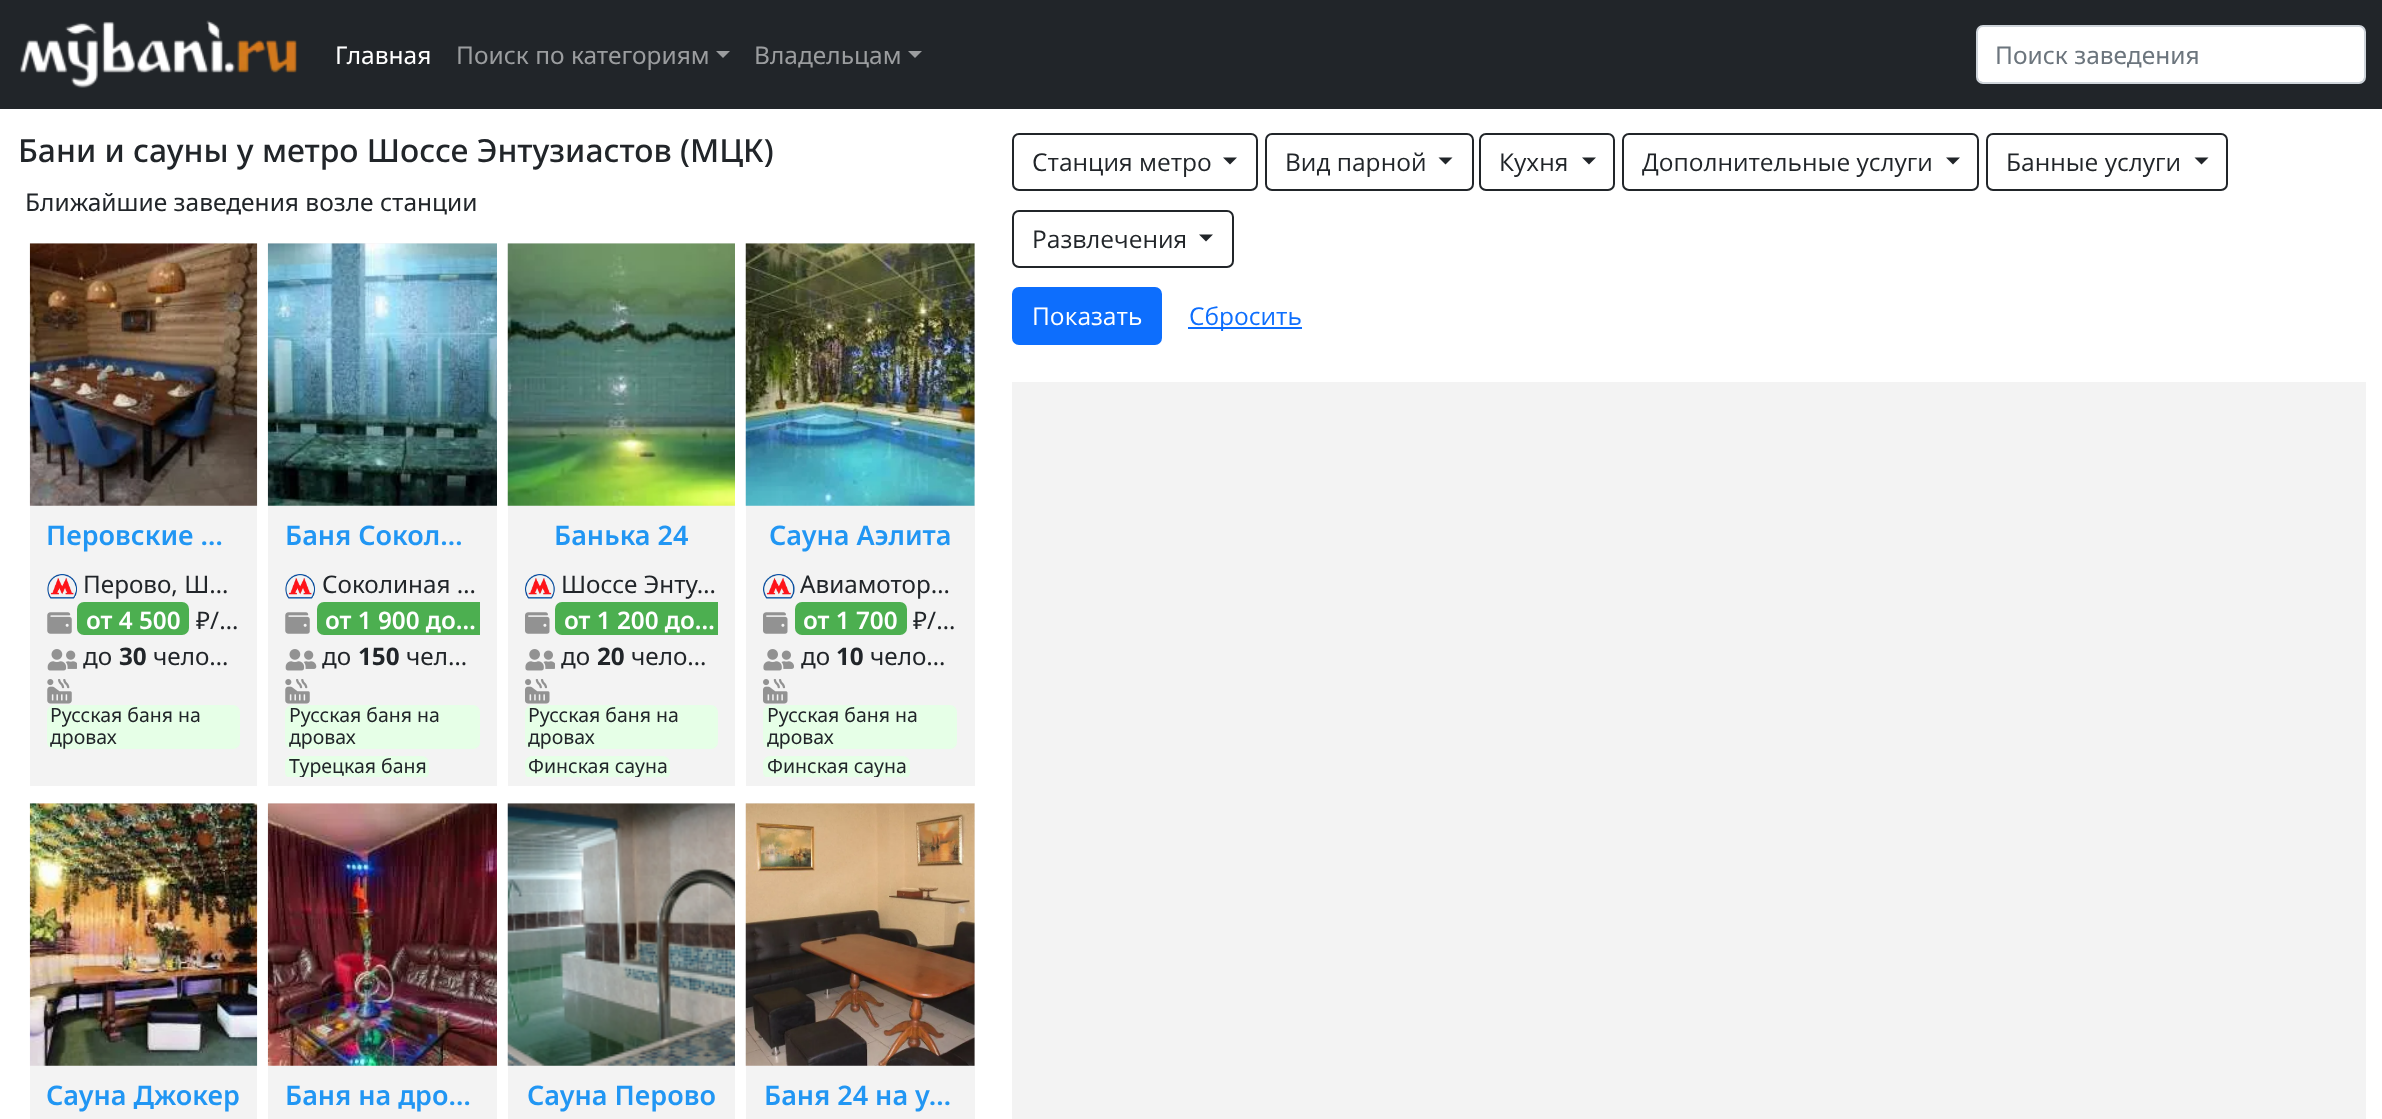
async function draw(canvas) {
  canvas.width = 2382
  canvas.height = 1119
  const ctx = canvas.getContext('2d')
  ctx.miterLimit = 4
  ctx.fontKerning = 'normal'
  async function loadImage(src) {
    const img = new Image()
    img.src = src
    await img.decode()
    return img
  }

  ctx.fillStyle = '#fff'
  ctx.fillRect(0, 0, 2382, 1119)
  ctx.fillStyle = '#212529'
  ctx.fillRect(0, 0, 2382, 109)
  ctx.drawImage(await loadImage('image0.png'), 20, 20, 277, 68)
  ctx.font = '24.5px Noto Sans'
  ctx.fillStyle = '#fff'
  ctx.fillText('Главная', 335, 64)
  ctx.fillStyle = '#9b9d9f'
  ctx.fillText('Поиск по категориям', 456, 64)
  ctx.beginPath()
  ctx.moveTo(716, 51)
  ctx.lineTo(730, 51)
  ctx.lineTo(723, 58)
  ctx.closePath()
  ctx.fill()
  ctx.fillText('Владельцам', 754, 64)
  ctx.beginPath()
  ctx.moveTo(908, 51)
  ctx.lineTo(922, 51)
  ctx.lineTo(915, 58)
  ctx.closePath()
  ctx.fill()
  ctx.fillStyle = '#fff'
  ctx.beginPath()
  ctx.roundRect(1978, 26, 386, 56, 4)
  ctx.fill()
  ctx.beginPath()
  ctx.roundRect(1977, 26, 388, 57, 6)
  ctx.strokeStyle = '#ced4da'
  ctx.lineWidth = 2
  ctx.stroke()
  ctx.fillStyle = '#6c757d'
  ctx.fillText('Поиск заведения', 1995, 64)
  ctx.font = '500 31.85px Noto Sans'
  ctx.fillStyle = '#212529'
  ctx.fillText('Бани и сауны у метро Шоссе Энтузиастов (МЦК)', 18, 162)
  ctx.font = '24.5px Noto Sans'
  ctx.fillText('Ближайшие заведения возле станции', 25, 211)
  ctx.fillStyle = '#f3f3f3'
  ctx.fillRect(30, 243, 227, 543)
  ctx.drawImage(await loadImage('image1.png'), 29, 243, 229, 263)
  ctx.font = '600 27px Noto Sans'
  ctx.fillStyle = '#2196f3'
  ctx.fillText('Перовские …', 46, 545)
  ctx.drawImage(await loadImage('image2.png'), 47, 574, 30, 25)
  ctx.font = '24.25px Noto Sans'
  ctx.fillStyle = '#212529'
  ctx.fillText('Перово, Ш…', 83, 593)
  ctx.drawImage(await loadImage('image3.png'), 47, 612, 25, 22)
  ctx.fillStyle = '#4caf50'
  ctx.beginPath()
  ctx.roundRect(77, 602, 112, 33, 7)
  ctx.fill()
  ctx.font = '600 24.25px Noto Sans'
  ctx.fillStyle = '#fff'
  ctx.fillText('от 4 500', 86, 629)
  ctx.font = '24.25px Noto Sans'
  ctx.fillStyle = '#212529'
  ctx.fillText('₽/…', 196, 629)
  ctx.drawImage(await loadImage('image4.png'), 47, 649, 30, 22)
  ctx.fillText('до', 83, 665)
  ctx.font = 'bold 24.25px Noto Sans'
  ctx.fillText('30', 119, 665)
  ctx.font = '24.25px Noto Sans'
  ctx.fillText('чело…', 153, 665)
  ctx.drawImage(await loadImage('image5.png'), 47, 679, 25, 25)
  ctx.fillStyle = '#e6ffe7'
  ctx.beginPath()
  ctx.roundRect(47, 705, 193, 44, 7)
  ctx.fill()
  ctx.font = '19.5px Noto Sans'
  ctx.fillStyle = '#212529'
  ctx.fillText('Русская баня на', 50, 722)
  ctx.fillText('дровах', 50, 744)
  ctx.fillStyle = '#f3f3f3'
  ctx.fillRect(268, 243, 229, 543)
  ctx.drawImage(await loadImage('image6.png'), 267, 243, 230, 263)
  ctx.font = '600 27px Noto Sans'
  ctx.fillStyle = '#2196f3'
  ctx.fillText('Баня Сокол…', 285, 545)
  ctx.drawImage(await loadImage('image2.png'), 285, 574, 30, 25)
  ctx.font = '24.25px Noto Sans'
  ctx.fillStyle = '#212529'
  ctx.fillText('Соколиная …', 322, 593)
  ctx.drawImage(await loadImage('image3.png'), 285, 612, 25, 22)
  ctx.fillStyle = '#4caf50'
  ctx.beginPath()
  ctx.roundRect(317, 602, 163, 33, [7, 0, 0, 7])
  ctx.fill()
  ctx.font = '600 24.25px Noto Sans'
  ctx.fillStyle = '#fff'
  ctx.fillText('от 1 900 до…', 325, 629)
  ctx.drawImage(await loadImage('image7.png'), 285, 649, 32, 22)
  ctx.font = '24.25px Noto Sans'
  ctx.fillStyle = '#212529'
  ctx.fillText('до', 322, 665)
  ctx.font = 'bold 24.25px Noto Sans'
  ctx.fillText('150', 358, 665)
  ctx.font = '24.25px Noto Sans'
  ctx.fillText('чел…', 406, 665)
  ctx.drawImage(await loadImage('image5.png'), 285, 679, 25, 25)
  ctx.fillStyle = '#e6ffe7'
  ctx.beginPath()
  ctx.roundRect(285, 705, 195, 44, 7)
  ctx.fill()
  ctx.font = '19.5px Noto Sans'
  ctx.fillStyle = '#212529'
  ctx.fillText('Русская баня на', 289, 722)
  ctx.fillText('дровах', 289, 744)
  ctx.save()
  ctx.beginPath()
  ctx.rect(285, 567, 195, 210)
  ctx.clip()
  ctx.fillStyle = '#e6ffe7'
  ctx.beginPath()
  ctx.roundRect(285, 756, 144, 23, 7)
  ctx.fill()
  ctx.restore()
  ctx.save()
  ctx.beginPath()
  ctx.rect(285, 676, 195, 101)
  ctx.clip()
  ctx.fillText('Турецкая баня', 289, 773)
  ctx.restore()
  ctx.fillStyle = '#f3f3f3'
  ctx.fillRect(508, 243, 227, 543)
  ctx.drawImage(await loadImage('image8.png'), 507, 243, 228, 263)
  ctx.font = '600 27px Noto Sans'
  ctx.fillStyle = '#2196f3'
  ctx.fillText('Банька 24', 554, 545)
  ctx.drawImage(await loadImage('image9.png'), 525, 574, 30, 25)
  ctx.font = '24.25px Noto Sans'
  ctx.fillStyle = '#212529'
  ctx.fillText('Шоссе Энту…', 561, 593)
  ctx.drawImage(await loadImage('image10.png'), 525, 612, 25, 22)
  ctx.fillStyle = '#4caf50'
  ctx.beginPath()
  ctx.roundRect(555, 602, 163, 33, [7, 0, 0, 7])
  ctx.fill()
  ctx.font = '600 24.25px Noto Sans'
  ctx.fillStyle = '#fff'
  ctx.fillText('от 1 200 до…', 564, 629)
  ctx.drawImage(await loadImage('image11.png'), 525, 649, 30, 22)
  ctx.font = '24.25px Noto Sans'
  ctx.fillStyle = '#212529'
  ctx.fillText('до', 561, 665)
  ctx.font = 'bold 24.25px Noto Sans'
  ctx.fillText('20', 597, 665)
  ctx.font = '24.25px Noto Sans'
  ctx.fillText('чело…', 631, 665)
  ctx.drawImage(await loadImage('image12.png'), 525, 679, 25, 25)
  ctx.fillStyle = '#e6ffe7'
  ctx.beginPath()
  ctx.roundRect(525, 705, 193, 44, 7)
  ctx.fill()
  ctx.font = '19.5px Noto Sans'
  ctx.fillStyle = '#212529'
  ctx.fillText('Русская баня на', 528, 722)
  ctx.fillText('дровах', 528, 744)
  ctx.save()
  ctx.beginPath()
  ctx.rect(525, 567, 193, 210)
  ctx.clip()
  ctx.fillStyle = '#e6ffe7'
  ctx.beginPath()
  ctx.roundRect(525, 756, 145, 23, 7)
  ctx.fill()
  ctx.restore()
  ctx.save()
  ctx.beginPath()
  ctx.rect(525, 676, 193, 101)
  ctx.clip()
  ctx.fillText('Финская сауна', 528, 773)
  ctx.restore()
  ctx.fillStyle = '#f3f3f3'
  ctx.fillRect(746, 243, 229, 543)
  ctx.drawImage(await loadImage('image13.png'), 745, 243, 230, 263)
  ctx.font = '600 27px Noto Sans'
  ctx.fillStyle = '#2196f3'
  ctx.fillText('Сауна Аэлита', 769, 545)
  ctx.drawImage(await loadImage('image14.png'), 763, 574, 32, 25)
  ctx.font = '24.25px Noto Sans'
  ctx.fillStyle = '#212529'
  ctx.fillText('Авиамотор…', 800, 593)
  ctx.drawImage(await loadImage('image10.png'), 763, 612, 25, 22)
  ctx.fillStyle = '#4caf50'
  ctx.beginPath()
  ctx.roundRect(795, 602, 112, 33, 7)
  ctx.fill()
  ctx.font = '600 24.25px Noto Sans'
  ctx.fillStyle = '#fff'
  ctx.fillText('от 1 700', 803, 629)
  ctx.font = '24.25px Noto Sans'
  ctx.fillStyle = '#212529'
  ctx.fillText('₽/…', 913, 629)
  ctx.drawImage(await loadImage('image15.png'), 763, 649, 31, 22)
  ctx.fillText('до', 801, 665)
  ctx.font = 'bold 24.25px Noto Sans'
  ctx.fillText('10', 836, 665)
  ctx.font = '24.25px Noto Sans'
  ctx.fillText('чело…', 870, 665)
  ctx.drawImage(await loadImage('image12.png'), 763, 679, 25, 25)
  ctx.fillStyle = '#e6ffe7'
  ctx.beginPath()
  ctx.roundRect(763, 705, 194, 44, 7)
  ctx.fill()
  ctx.font = '19.5px Noto Sans'
  ctx.fillStyle = '#212529'
  ctx.fillText('Русская баня на', 767, 722)
  ctx.fillText('дровах', 767, 744)
  ctx.save()
  ctx.beginPath()
  ctx.rect(763, 567, 194, 210)
  ctx.clip()
  ctx.fillStyle = '#e6ffe7'
  ctx.beginPath()
  ctx.roundRect(763, 756, 147, 23, 7)
  ctx.fill()
  ctx.restore()
  ctx.save()
  ctx.beginPath()
  ctx.rect(763, 676, 194, 101)
  ctx.clip()
  ctx.fillText('Финская сауна', 767, 773)
  ctx.restore()
  ctx.fillStyle = '#f3f3f3'
  ctx.fillRect(30, 803, 227, 316)
  ctx.drawImage(await loadImage('image16.png'), 29, 803, 229, 263)
  ctx.font = '600 27px Noto Sans'
  ctx.fillStyle = '#2196f3'
  ctx.fillText('Сауна Джокер', 46, 1105)
  ctx.fillStyle = '#f3f3f3'
  ctx.fillRect(268, 803, 229, 316)
  ctx.drawImage(await loadImage('image17.png'), 267, 803, 230, 263)
  ctx.fillStyle = '#2196f3'
  ctx.fillText('Баня на дро…', 285, 1105)
  ctx.fillStyle = '#f3f3f3'
  ctx.fillRect(508, 803, 227, 316)
  ctx.drawImage(await loadImage('image18.png'), 507, 803, 228, 263)
  ctx.fillStyle = '#2196f3'
  ctx.fillText('Сауна Перово', 527, 1105)
  ctx.fillStyle = '#f3f3f3'
  ctx.fillRect(746, 803, 229, 316)
  ctx.drawImage(await loadImage('image19.png'), 745, 803, 230, 263)
  ctx.fillStyle = '#2196f3'
  ctx.fillText('Баня 24 на у…', 764, 1105)
  ctx.beginPath()
  ctx.roundRect(1013, 134, 244, 56, 6)
  ctx.strokeStyle = '#212529'
  ctx.stroke()
  ctx.font = '24.5px Open Sans'
  ctx.fillStyle = '#212529'
  ctx.fillText('Станция метро', 1032, 171)
  ctx.beginPath()
  ctx.moveTo(1223, 157.5)
  ctx.lineTo(1237, 157.5)
  ctx.lineTo(1230, 164.5)
  ctx.closePath()
  ctx.fill()
  ctx.beginPath()
  ctx.roundRect(1266, 134, 207, 56, 6)
  ctx.stroke()
  ctx.fillText('Вид парной', 1285, 171)
  ctx.beginPath()
  ctx.moveTo(1438.5, 157.5)
  ctx.lineTo(1452.5, 157.5)
  ctx.lineTo(1445.5, 164.5)
  ctx.closePath()
  ctx.fill()
  ctx.beginPath()
  ctx.roundRect(1480, 134, 134, 56, 6)
  ctx.stroke()
  ctx.fillText('Кухня', 1499, 171)
  ctx.beginPath()
  ctx.moveTo(1582, 157.5)
  ctx.lineTo(1596, 157.5)
  ctx.lineTo(1589, 164.5)
  ctx.closePath()
  ctx.fill()
  ctx.beginPath()
  ctx.roundRect(1623, 134, 355, 56, 6)
  ctx.stroke()
  ctx.fillText('Дополнительные услуги', 1642, 171)
  ctx.beginPath()
  ctx.moveTo(1946, 157.5)
  ctx.lineTo(1960, 157.5)
  ctx.lineTo(1953, 164.5)
  ctx.closePath()
  ctx.fill()
  ctx.beginPath()
  ctx.roundRect(1987, 134, 240, 56, 6)
  ctx.stroke()
  ctx.fillText('Банные услуги', 2006, 171)
  ctx.beginPath()
  ctx.moveTo(2194.5, 157.5)
  ctx.lineTo(2208.5, 157.5)
  ctx.lineTo(2201.5, 164.5)
  ctx.closePath()
  ctx.fill()
  ctx.beginPath()
  ctx.roundRect(1013, 211, 220, 56, 6)
  ctx.stroke()
  ctx.fillText('Развлечения', 1032, 248)
  ctx.beginPath()
  ctx.moveTo(1199, 234.5)
  ctx.lineTo(1213, 234.5)
  ctx.lineTo(1206, 241.5)
  ctx.closePath()
  ctx.fill()
  ctx.fillStyle = '#0d6efd'
  ctx.beginPath()
  ctx.roundRect(1013, 288, 148, 56, 6)
  ctx.fill()
  ctx.strokeStyle = '#0d6efd'
  ctx.stroke()
  ctx.fillStyle = '#fff'
  ctx.fillText('Показать', 1032, 325)
  ctx.fillStyle = '#0d6efd'
  ctx.fillRect(1188, 327, 114, 2)
  ctx.fillText('Сбросить', 1189, 325)
  ctx.fillStyle = '#f3f3f3'
  ctx.fillRect(1012, 382, 1354, 737)
}

draw(document.querySelector('canvas'))
